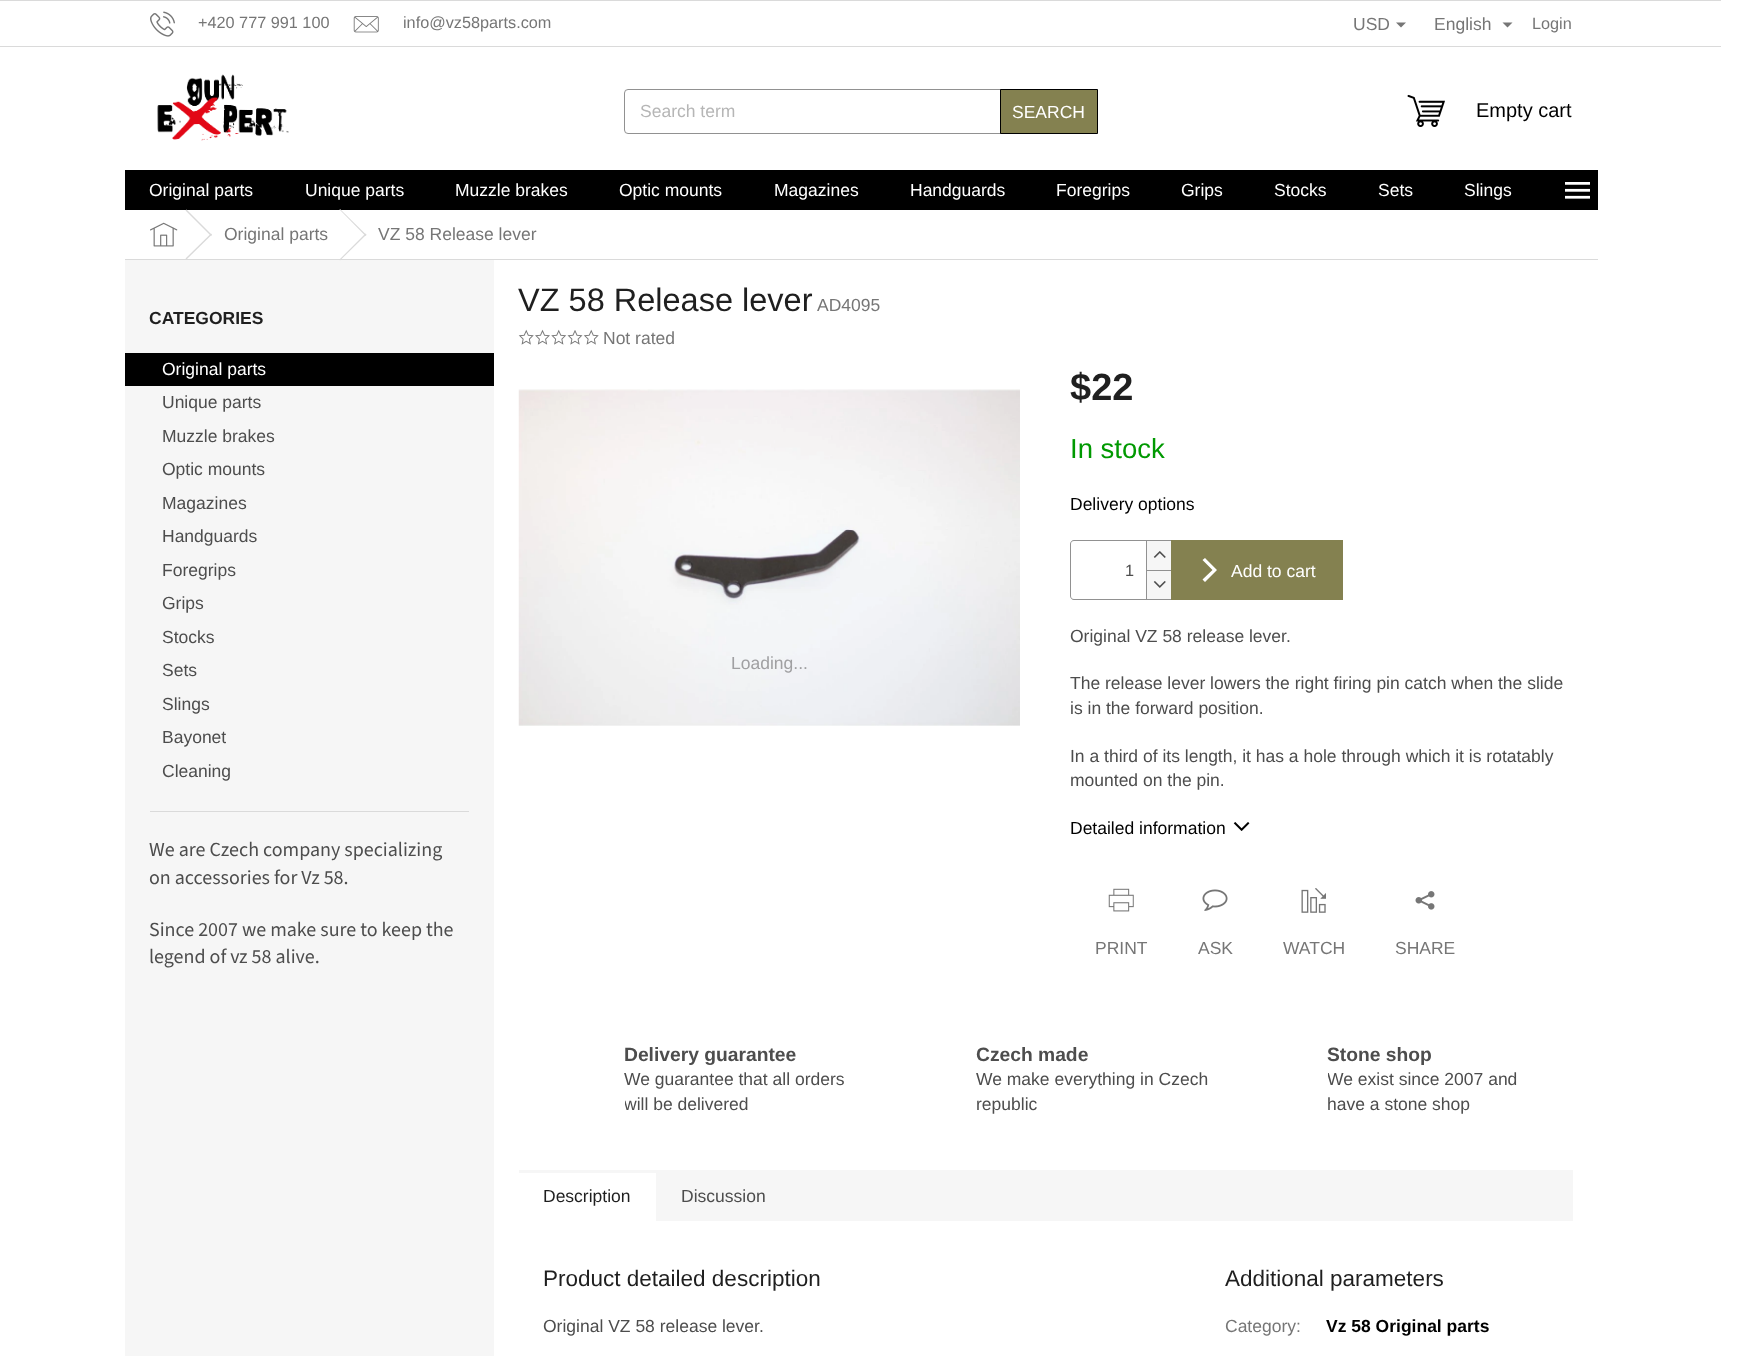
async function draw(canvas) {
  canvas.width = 1739
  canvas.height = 1356
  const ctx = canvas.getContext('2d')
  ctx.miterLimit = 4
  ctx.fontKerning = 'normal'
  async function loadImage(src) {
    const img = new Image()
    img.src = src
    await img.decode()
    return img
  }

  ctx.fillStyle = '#fff'
  ctx.fillRect(0, 0, 1739, 1356)
  ctx.fillStyle = '#dadada'
  ctx.fillRect(0, 0, 1721, 1)
  ctx.fillRect(0, 46, 1721, 1)
  ctx.drawImage(await loadImage('image0.png'), 150, 11, 25, 26)
  ctx.font = '16.25px Liberation Sans'
  ctx.fillStyle = '#767676'
  ctx.fillText('+420 777 991 100', 198, 28)
  ctx.drawImage(await loadImage('image1.png'), 353, 16, 26, 17)
  ctx.fillText('info@vz58parts.com', 403, 28)
  ctx.font = '17.5px Liberation Sans'
  ctx.fillText('USD', 1353, 30)
  ctx.beginPath()
  ctx.moveTo(1396, 22.5)
  ctx.lineTo(1406, 22.5)
  ctx.lineTo(1401, 27.5)
  ctx.closePath()
  ctx.fill()
  ctx.fillText('English', 1434, 30)
  ctx.beginPath()
  ctx.moveTo(1502.5, 22.5)
  ctx.lineTo(1512.5, 22.5)
  ctx.lineTo(1507.5, 27.5)
  ctx.closePath()
  ctx.fill()
  ctx.font = '16.25px Liberation Sans'
  ctx.fillText('Login', 1532, 29)
  ctx.drawImage(await loadImage('image2.png'), 157, 74, 132, 67)
  ctx.beginPath()
  ctx.roundRect(624.5, 89.5, 473, 44, 3.5)
  ctx.strokeStyle = '#919191'
  ctx.stroke()
  ctx.font = '17.5px Liberation Sans'
  ctx.fillStyle = '#b6b6b6'
  ctx.fillText('Search term', 640, 117)
  ctx.fillStyle = '#848150'
  ctx.beginPath()
  ctx.rect(1000.5, 89.5, 97, 44)
  ctx.fill()
  ctx.strokeStyle = '#000'
  ctx.stroke()
  ctx.fillStyle = '#fff'
  ctx.fillText('SEARCH', 1012, 118)
  ctx.drawImage(await loadImage('image3.png'), 1407, 94, 38, 33)
  ctx.font = '20px Liberation Sans'
  ctx.fillStyle = '#000'
  ctx.fillText('Empty cart', 1476, 117)
  ctx.fillRect(125, 170, 1473, 40)
  ctx.font = '17.5px Liberation Sans'
  ctx.fillStyle = '#fff'
  ctx.fillText('Original parts', 149, 196)
  ctx.fillText('Unique parts', 305, 196)
  ctx.fillText('Muzzle brakes', 455, 196)
  ctx.fillText('Optic mounts', 619, 196)
  ctx.fillText('Magazines', 774, 196)
  ctx.fillText('Handguards', 910, 196)
  ctx.fillText('Foregrips', 1056, 196)
  ctx.fillText('Grips', 1181, 196)
  ctx.fillText('Stocks', 1274, 196)
  ctx.fillText('Sets', 1378, 196)
  ctx.fillText('Slings', 1464, 196)
  ctx.drawImage(await loadImage('image4.png'), 1565, 182, 25, 17)
  ctx.fillStyle = '#dadada'
  ctx.fillRect(125, 259, 1473, 1)
  ctx.drawImage(await loadImage('image5.png'), 150, 222, 28, 25)
  ctx.beginPath()
  ctx.moveTo(185.5, 210.5)
  ctx.lineTo(186.5, 209.5)
  ctx.lineTo(212, 235)
  ctx.lineTo(211, 236)
  ctx.closePath()
  ctx.fill()
  ctx.beginPath()
  ctx.moveTo(211, 233.5)
  ctx.lineTo(212, 234.5)
  ctx.lineTo(186.5, 259.5)
  ctx.lineTo(185.5, 258.5)
  ctx.closePath()
  ctx.fill()
  ctx.fillStyle = '#767676'
  ctx.fillText('Original parts', 224, 240)
  ctx.fillStyle = '#dadada'
  ctx.beginPath()
  ctx.moveTo(339.5, 209.5)
  ctx.lineTo(340, 209)
  ctx.lineTo(366.5, 235)
  ctx.lineTo(365.5, 236)
  ctx.closePath()
  ctx.fill()
  ctx.fillStyle = '#f6f6f6'
  ctx.fillRect(125, 260, 369, 1096)
  ctx.fillStyle = '#dadada'
  ctx.beginPath()
  ctx.moveTo(365.5, 233.5)
  ctx.lineTo(366.5, 234.5)
  ctx.lineTo(340, 260.5)
  ctx.lineTo(339.5, 259.5)
  ctx.closePath()
  ctx.fill()
  ctx.fillStyle = '#767676'
  ctx.fillText('VZ 58 Release lever', 378, 240)
  ctx.fillStyle = '#dadada'
  ctx.fillRect(150, 811, 319, 1)
  ctx.font = 'bold 17.5px Liberation Sans'
  ctx.fillStyle = '#1f1f1f'
  ctx.fillText('CATEGORIES', 149, 324)
  ctx.fillStyle = '#000'
  ctx.fillRect(125, 353, 369, 33)
  ctx.font = '17.5px Liberation Sans'
  ctx.fillStyle = '#fff'
  ctx.fillText('Original parts', 162, 375)
  ctx.fillStyle = '#4d4d4d'
  ctx.fillText('Unique parts', 162, 408)
  ctx.fillText('Muzzle brakes', 162, 442)
  ctx.fillText('Optic mounts', 162, 475)
  ctx.fillText('Magazines', 162, 509)
  ctx.fillText('Handguards', 162, 542)
  ctx.fillText('Foregrips', 162, 576)
  ctx.fillText('Grips', 162, 609)
  ctx.fillText('Stocks', 162, 643)
  ctx.fillText('Sets', 162, 676)
  ctx.fillText('Slings', 162, 710)
  ctx.fillText('Bayonet', 162, 743)
  ctx.fillText('Cleaning', 162, 777)
  ctx.font = '20px "Source Sans 3"'
  ctx.fillText('We are Czech company specializing', 149, 856)
  ctx.fillText('on accessories for Vz 58.', 149, 884)
  ctx.fillText('Since 2007 we make sure to keep the', 149, 936)
  ctx.fillText('legend of vz 58 alive.', 149, 963)
  ctx.font = '32.5px Liberation Sans'
  ctx.fillStyle = '#1f1f1f'
  ctx.fillText('VZ 58 Release lever', 518, 311)
  ctx.font = '17.5px Liberation Sans'
  ctx.fillStyle = '#767676'
  ctx.fillText('AD4095', 817, 311)
  ctx.drawImage(await loadImage('image6.png'), 518, 329, 16, 16)
  ctx.drawImage(await loadImage('image7.png'), 535, 329, 15, 16)
  ctx.drawImage(await loadImage('image8.png'), 551, 329, 16, 16)
  ctx.drawImage(await loadImage('image9.png'), 567, 330, 16, 15)
  ctx.drawImage(await loadImage('image6.png'), 583, 329, 16, 16)
  ctx.fillText('Not rated', 603, 344)
  ctx.drawImage(await loadImage('image10.png'), 518, 389, 502, 337)
  ctx.fillStyle = '#a0a0a2'
  ctx.fillText('Loading...', 731, 669)
  ctx.font = 'bold 38px Liberation Sans'
  ctx.fillStyle = '#1f1f1f'
  ctx.fillText('$22', 1070, 400)
  ctx.font = '27.5px Liberation Sans'
  ctx.fillStyle = '#009901'
  ctx.fillText('In stock', 1070, 458)
  ctx.font = '17.5px Liberation Sans'
  ctx.fillStyle = '#000'
  ctx.fillText('Delivery options', 1070, 510)
  ctx.fillStyle = '#919191'
  ctx.beginPath()
  ctx.moveTo(1074, 540)
  ctx.lineTo(1171, 540)
  ctx.lineTo(1171, 600)
  ctx.lineTo(1074, 600)
  ctx.bezierCurveTo(1072, 600, 1070, 598, 1070, 596)
  ctx.lineTo(1070, 544)
  ctx.bezierCurveTo(1070, 542, 1072, 540, 1074, 540)
  ctx.closePath()
  ctx.moveTo(1074, 541)
  ctx.lineTo(1171, 541)
  ctx.lineTo(1171, 599)
  ctx.lineTo(1074, 599)
  ctx.bezierCurveTo(1072, 599, 1071, 598, 1071, 596)
  ctx.lineTo(1071, 544)
  ctx.bezierCurveTo(1071, 542, 1072, 541, 1074, 541)
  ctx.closePath()
  ctx.fill('evenodd')
  ctx.font = '16.25px Liberation Sans'
  ctx.fillStyle = '#4d4d4d'
  ctx.fillText('1', 1125, 576)
  ctx.fillStyle = '#f6f6f6'
  ctx.fillRect(1147, 541, 24, 29)
  ctx.fillStyle = '#919191'
  ctx.fillRect(1146, 541, 1, 29)
  ctx.drawImage(await loadImage('image11.png'), 1153, 551, 13, 7)
  ctx.fillStyle = '#f6f6f6'
  ctx.fillRect(1147, 571, 24, 28)
  ctx.fillStyle = '#919191'
  ctx.fillRect(1146, 570, 25, 1)
  ctx.fillRect(1146, 570, 1, 29)
  ctx.drawImage(await loadImage('image12.png'), 1153, 581, 13, 7)
  ctx.fillStyle = '#848150'
  ctx.fillRect(1171, 540, 172, 60)
  ctx.fillStyle = '#fff'
  ctx.beginPath()
  ctx.moveTo(1205, 582)
  ctx.lineTo(1202.5, 579.5)
  ctx.lineTo(1212.5, 570)
  ctx.lineTo(1202.5, 560)
  ctx.lineTo(1205, 558)
  ctx.lineTo(1217, 570)
  ctx.closePath()
  ctx.fill()
  ctx.font = '17.5px Liberation Sans'
  ctx.fillText('Add to cart', 1231, 577)
  ctx.fillStyle = '#4d4d4d'
  ctx.fillText('Original VZ 58 release lever.', 1070, 642)
  ctx.fillText('The release lever lowers the right firing pin catch when the slide', 1070, 689)
  ctx.fillText('is in the forward position.', 1070, 714)
  ctx.fillText('In a third of its length, it has a hole through which it is rotatably', 1070, 762)
  ctx.fillText('mounted on the pin.', 1070, 786)
  ctx.fillStyle = '#000'
  ctx.fillText('Detailed information', 1070, 834)
  ctx.drawImage(await loadImage('image13.png'), 1233, 822, 17, 9)
  ctx.drawImage(await loadImage('image14.png'), 1108, 888, 26, 24)
  ctx.fillStyle = '#767676'
  ctx.fillText('PRINT', 1095, 954)
  ctx.drawImage(await loadImage('image15.png'), 1202, 889, 26, 22)
  ctx.fillText('ASK', 1198, 954)
  ctx.drawImage(await loadImage('image16.png'), 1301, 888, 25, 25)
  ctx.fillText('WATCH', 1283, 954)
  ctx.drawImage(await loadImage('image17.png'), 1415, 891, 20, 19)
  ctx.fillText('SHARE', 1395, 954)
  ctx.font = 'bold 19.25px Liberation Sans'
  ctx.fillStyle = '#4d4d4d'
  ctx.fillText('Delivery guarantee', 624, 1061)
  ctx.font = '17.5px Liberation Sans'
  ctx.fillText('We guarantee that all orders', 624, 1085)
  ctx.save()
  ctx.beginPath()
  ctx.rect(625, 1041, 245, 75)
  ctx.clip()
  ctx.fillText('will be delivered', 624, 1110)
  ctx.restore()
  ctx.font = 'bold 19.25px Liberation Sans'
  ctx.fillText('Czech made', 976, 1061)
  ctx.font = '17.5px Liberation Sans'
  ctx.fillText('We make everything in Czech', 976, 1085)
  ctx.fillText('republic', 976, 1110)
  ctx.font = 'bold 19.25px Liberation Sans'
  ctx.fillText('Stone shop', 1327, 1061)
  ctx.save()
  ctx.beginPath()
  ctx.rect(1328, 1041, 245, 75)
  ctx.clip()
  ctx.font = '17.5px Liberation Sans'
  ctx.fillText('We exist since 2007 and', 1327, 1085)
  ctx.restore()
  ctx.font = '17.5px Liberation Sans'
  ctx.fillText('have a stone shop', 1327, 1110)
  ctx.fillStyle = '#f6f6f6'
  ctx.fillRect(656, 1170, 917, 51)
  ctx.fillRect(519, 1170, 137, 3)
  ctx.fillStyle = '#1f1f1f'
  ctx.fillText('Description', 543, 1202)
  ctx.fillStyle = '#4d4d4d'
  ctx.fillText('Discussion', 681, 1202)
  ctx.font = '22.5px Liberation Sans'
  ctx.fillStyle = '#1f1f1f'
  ctx.fillText('Product detailed description', 543, 1286)
  ctx.font = '17.5px Liberation Sans'
  ctx.fillStyle = '#4d4d4d'
  ctx.fillText('Original VZ 58 release lever.', 543, 1332)
  ctx.font = '22.5px Liberation Sans'
  ctx.fillStyle = '#1f1f1f'
  ctx.fillText('Additional parameters', 1225, 1286)
  ctx.font = '17.5px Liberation Sans'
  ctx.fillStyle = '#767676'
  ctx.fillText('Category:', 1225, 1332)
  ctx.font = 'bold 17.5px Liberation Sans'
  ctx.fillStyle = '#000'
  ctx.fillText('Vz 58 Original parts', 1326, 1332)
}

draw(document.querySelector('canvas'))
